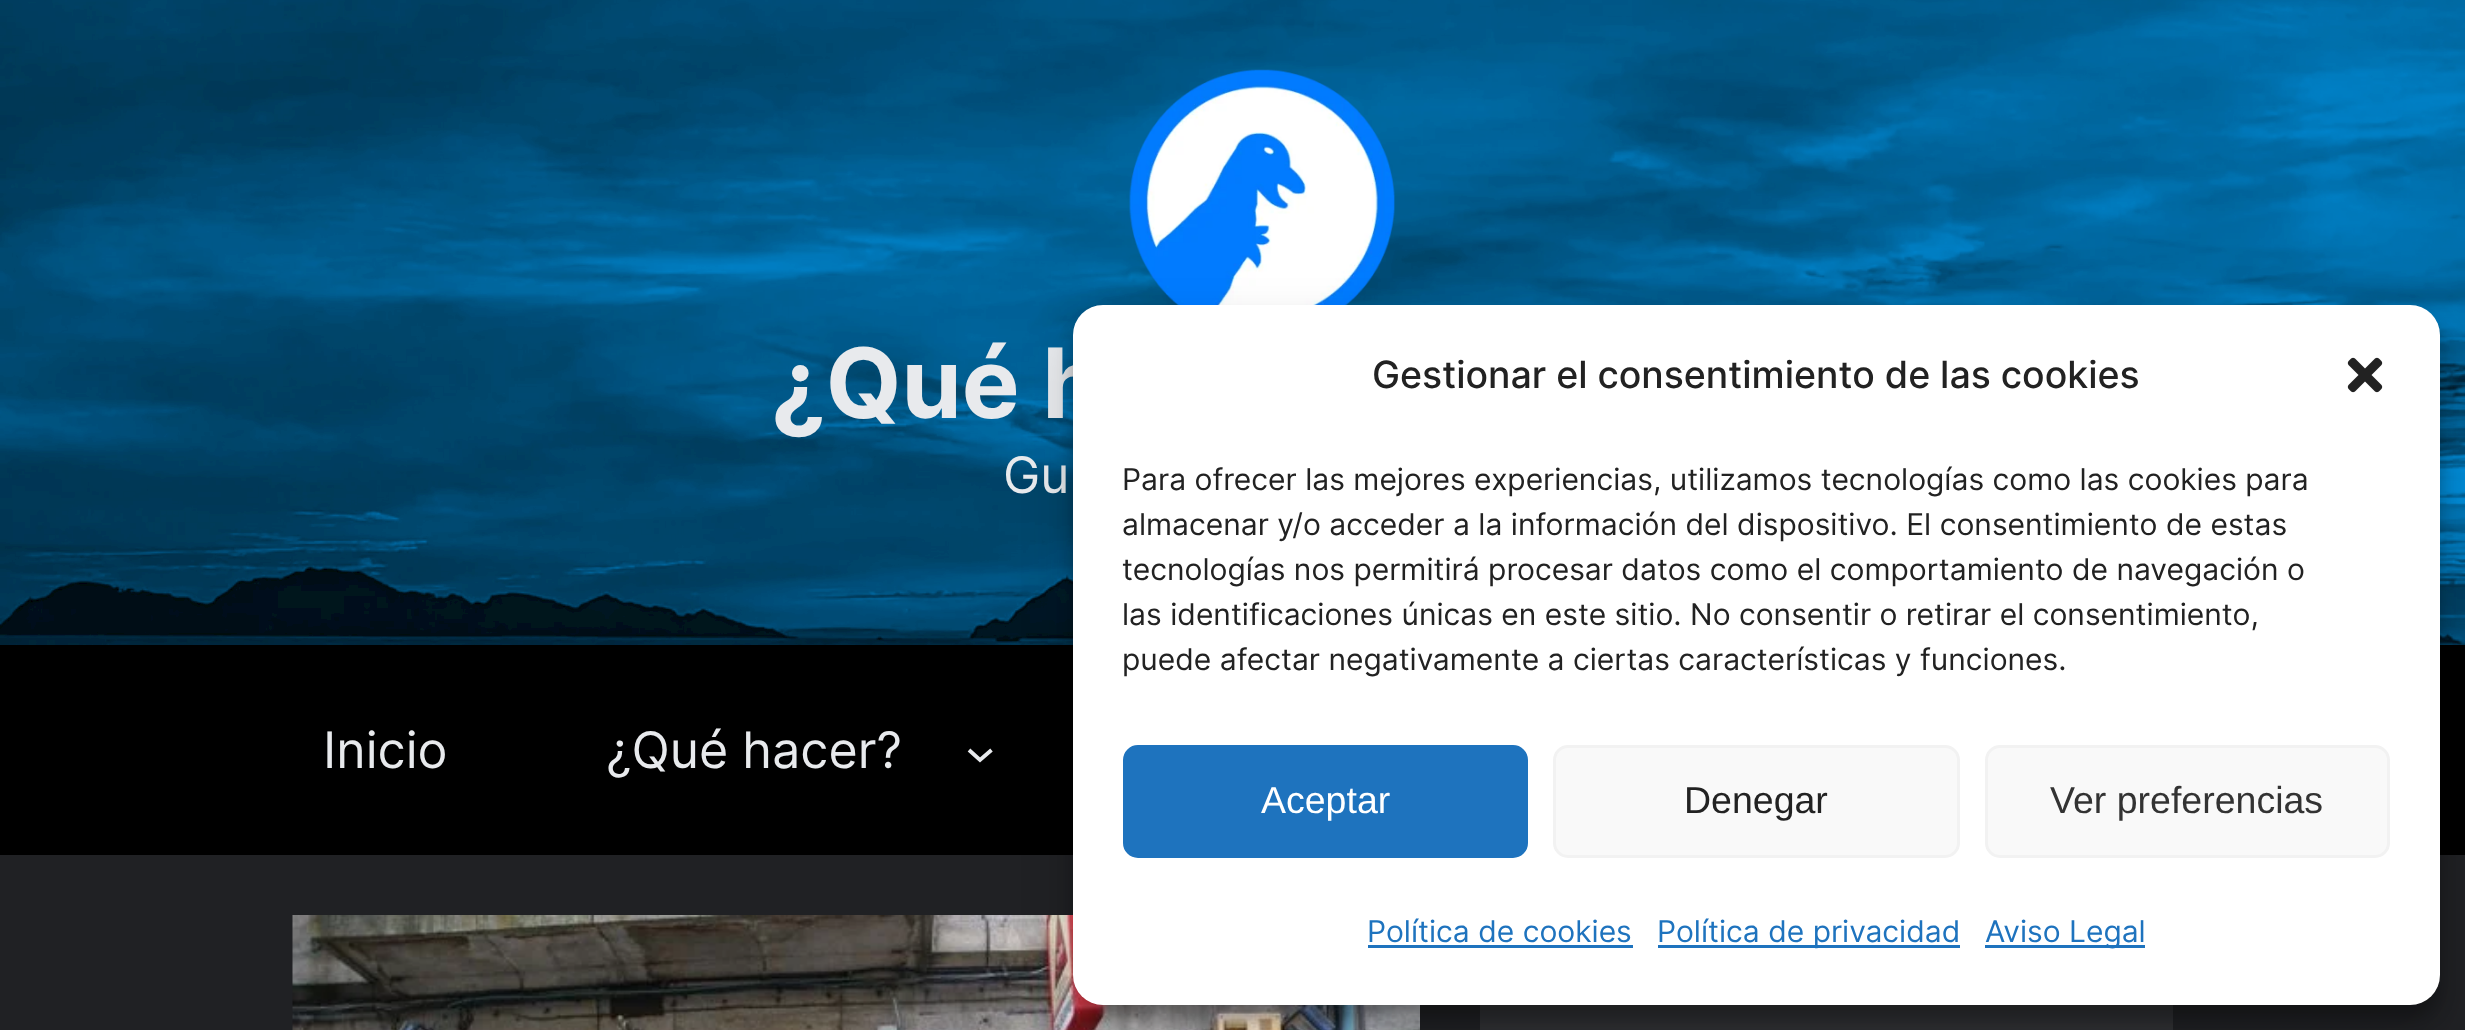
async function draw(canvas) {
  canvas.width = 2465
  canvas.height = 1030
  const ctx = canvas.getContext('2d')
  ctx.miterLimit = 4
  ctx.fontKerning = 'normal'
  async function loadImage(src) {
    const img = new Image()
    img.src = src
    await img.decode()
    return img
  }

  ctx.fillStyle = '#202124'
  ctx.fillRect(0, 0, 2465, 1030)
  ctx.drawImage(await loadImage('image0.png'), 0, 0, 2465, 645)
  ctx.drawImage(await loadImage('image1.png'), 1129, 69, 266, 236)
  ctx.font = 'bold 97px Inter'
  ctx.fillStyle = '#e8eaed'
  ctx.fillText('¿Qué h', 771, 418)
  ctx.font = '50.25px Inter'
  ctx.fillText('Gu', 1003, 493)
  ctx.fillStyle = '#000'
  ctx.fillRect(0, 645, 2465, 210)
  ctx.fillStyle = '#e8eaed'
  ctx.fillText('Inicio', 323, 768)
  ctx.fillText('¿Qué hacer?', 606, 768)
  ctx.beginPath()
  ctx.moveTo(969, 750)
  ctx.lineTo(980, 760)
  ctx.lineTo(991.5, 750)
  ctx.strokeStyle = '#e8eaed'
  ctx.lineWidth = 3.8
  ctx.stroke()
  ctx.drawImage(await loadImage('image2.png'), 292, 915, 1128, 115)
  ctx.fillStyle = '#303134'
  ctx.fillRect(1480, 1005, 693, 25)
  ctx.fillStyle = '#0000003b'
  ctx.filter = 'blur(7.5px)'
  ctx.beginPath()
  ctx.roundRect(1073, 320, 1367, 700, 30)
  ctx.fill()
  ctx.filter = 'none'
  ctx.fillStyle = '#00000030'
  ctx.filter = 'blur(25px)'
  ctx.beginPath()
  ctx.roundRect(1073, 330, 1367, 700, 30)
  ctx.fill()
  ctx.filter = 'none'
  ctx.fillStyle = '#fff'
  ctx.beginPath()
  ctx.roundRect(1073, 305, 1367, 700, 30)
  ctx.fill()
  ctx.font = '500 37.5px Inter'
  ctx.fillStyle = '#222'
  ctx.fillText('Gestionar el consentimiento de las cookies', 1372, 388)
  ctx.drawImage(await loadImage('image3.png'), 2347, 357, 36, 36)
  ctx.font = '30px Inter'
  ctx.fillText('Para ofrecer las mejores experiencias, utilizamos tecnologías como las cookies para', 1122, 490)
  ctx.fillText('almacenar y/o acceder a la información del dispositivo. El consentimiento de estas', 1122, 535)
  ctx.fillText('tecnologías nos permitirá procesar datos como el comportamiento de navegación o', 1122, 580)
  ctx.fillText('las identificaciones únicas en este sitio. No consentir o retirar el consentimiento,', 1122, 625)
  ctx.fillText('puede afectar negativamente a ciertas características y funciones.', 1122, 670)
  ctx.fillStyle = '#1e73be'
  ctx.beginPath()
  ctx.roundRect(1124.5, 746.5, 402, 110, 13.5)
  ctx.fill()
  ctx.strokeStyle = '#1e73be'
  ctx.lineWidth = 3
  ctx.stroke()
  ctx.font = '37.5px Liberation Sans'
  ctx.fillStyle = '#fff'
  ctx.fillText('Aceptar', 1261, 813)
  ctx.fillStyle = '#f9f9f9'
  ctx.beginPath()
  ctx.roundRect(1554.5, 746.5, 404, 110, 13.5)
  ctx.fill()
  ctx.strokeStyle = '#f2f2f2'
  ctx.stroke()
  ctx.fillStyle = '#222'
  ctx.fillText('Denegar', 1684, 813)
  ctx.fillStyle = '#f9f9f9'
  ctx.beginPath()
  ctx.roundRect(1986.5, 746.5, 402, 110, 13.5)
  ctx.fill()
  ctx.stroke()
  ctx.fillStyle = '#333'
  ctx.fillText('Ver preferencias', 2050, 813)
  ctx.font = '30px Inter'
  ctx.fillStyle = '#1e73be'
  ctx.fillText('Política de cookies', 1367, 942)
  ctx.fillRect(1368, 945, 265, 3)
  ctx.fillRect(1658, 945, 302, 3)
  ctx.fillText('Política de privacidad', 1657, 942)
  ctx.fillRect(1985, 945, 160, 3)
  ctx.fillText('Aviso Legal', 1985, 942)
}

draw(document.querySelector('canvas'))
